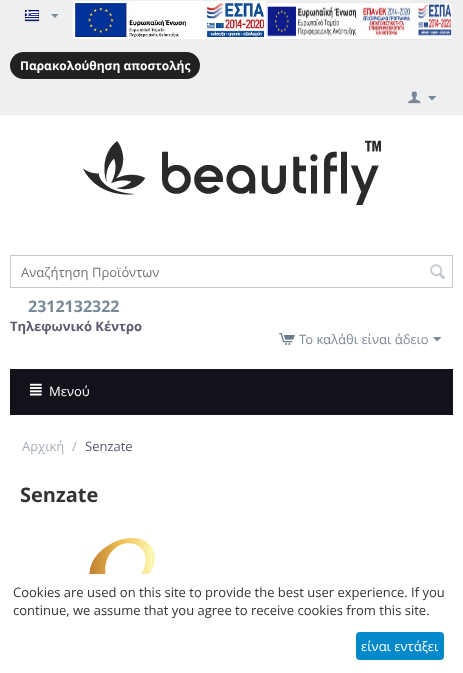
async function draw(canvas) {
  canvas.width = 463
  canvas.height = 673
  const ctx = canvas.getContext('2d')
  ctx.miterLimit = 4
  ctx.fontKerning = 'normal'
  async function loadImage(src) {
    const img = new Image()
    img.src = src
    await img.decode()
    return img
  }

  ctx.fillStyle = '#fff'
  ctx.fillRect(0, 0, 463, 673)
  ctx.fillStyle = '#edeff1'
  ctx.fillRect(0, 0, 463, 115)
  ctx.drawImage(await loadImage('image0.png'), 24, 10, 16, 13)
  ctx.fillStyle = '#7a8998'
  ctx.beginPath()
  ctx.moveTo(55, 18)
  ctx.lineTo(51, 14)
  ctx.lineTo(58.5, 14)
  ctx.closePath()
  ctx.fill()
  ctx.drawImage(await loadImage('image1.png'), 73, 1, 193, 38)
  ctx.drawImage(await loadImage('image2.png'), 266, 2, 187, 38)
  ctx.fillStyle = '#212121'
  ctx.beginPath()
  ctx.roundRect(10, 52, 190, 27, 13.5)
  ctx.fill()
  ctx.font = 'bold 12px Open Sans'
  ctx.fillStyle = '#fff'
  ctx.fillText('Παρακολούθηση αποστολής', 20, 70)
  ctx.drawImage(await loadImage('image3.png'), 408, 91, 13, 13)
  ctx.fillStyle = '#7a8998'
  ctx.beginPath()
  ctx.moveTo(432, 100.5)
  ctx.lineTo(428, 96)
  ctx.lineTo(436.5, 96)
  ctx.closePath()
  ctx.fill()
  ctx.drawImage(await loadImage('image4.png'), 83, 140, 298, 65)
  ctx.strokeStyle = '#c2c9d0'
  ctx.strokeRect(10.5, 255.5, 442, 32)
  ctx.font = '13px Open Sans'
  ctx.fillStyle = '#737373'
  ctx.fillText('Αναζήτηση Προϊόντων', 21, 277)
  ctx.drawImage(await loadImage('image5.png'), 430, 264, 16, 16)
  ctx.font = 'bold 16px Open Sans'
  ctx.fillStyle = '#7a8998'
  ctx.fillText('2312132322', 28, 312)
  ctx.font = 'bold 13px Open Sans'
  ctx.fillStyle = '#60576f'
  ctx.fillText('Τηλεφωνικό Κέντρο', 10, 331)
  ctx.drawImage(await loadImage('image6.png'), 279, 333, 16, 12)
  ctx.font = '13px Open Sans'
  ctx.fillStyle = '#7a8998'
  ctx.fillText('Το καλάθι είναι άδειο', 299, 344)
  ctx.beginPath()
  ctx.moveTo(437, 341.5)
  ctx.lineTo(433, 337)
  ctx.lineTo(441.5, 337)
  ctx.closePath()
  ctx.fill()
  ctx.fillStyle = '#14111a'
  ctx.fillRect(10, 369, 443, 46)
  ctx.drawImage(await loadImage('image7.png'), 30, 383, 12, 13)
  ctx.fillStyle = '#fff'
  ctx.fillText('Μενού', 49, 396)
  ctx.fillStyle = '#a5afb9'
  ctx.fillText('Αρχική', 22, 451)
  ctx.font = '13px "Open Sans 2"'
  ctx.fillText('/', 72, 451)
  ctx.fillStyle = '#60576f'
  ctx.fillText('Senzate', 85, 451)
  ctx.font = 'bold 20px Open Sans'
  ctx.fillStyle = '#333'
  ctx.fillText('Senzate', 20, 502)
  ctx.drawImage(await loadImage('image8.png'), 89, 538, 66, 36)
  ctx.font = '13px "Open Sans 2"'
  ctx.fillText('Cookies are used on this site to provide the best user experience. If you', 13, 597)
  ctx.fillText('continue, we assume that you agree to receive cookies from this site.', 13, 615)
  ctx.fillStyle = '#0388cc'
  ctx.beginPath()
  ctx.roundRect(356, 632, 88, 28, 4)
  ctx.fill()
  ctx.font = '13px Open Sans'
  ctx.fillStyle = '#fff'
  ctx.fillText('είναι εντάξει', 361, 651)
}

draw(document.querySelector('canvas'))
